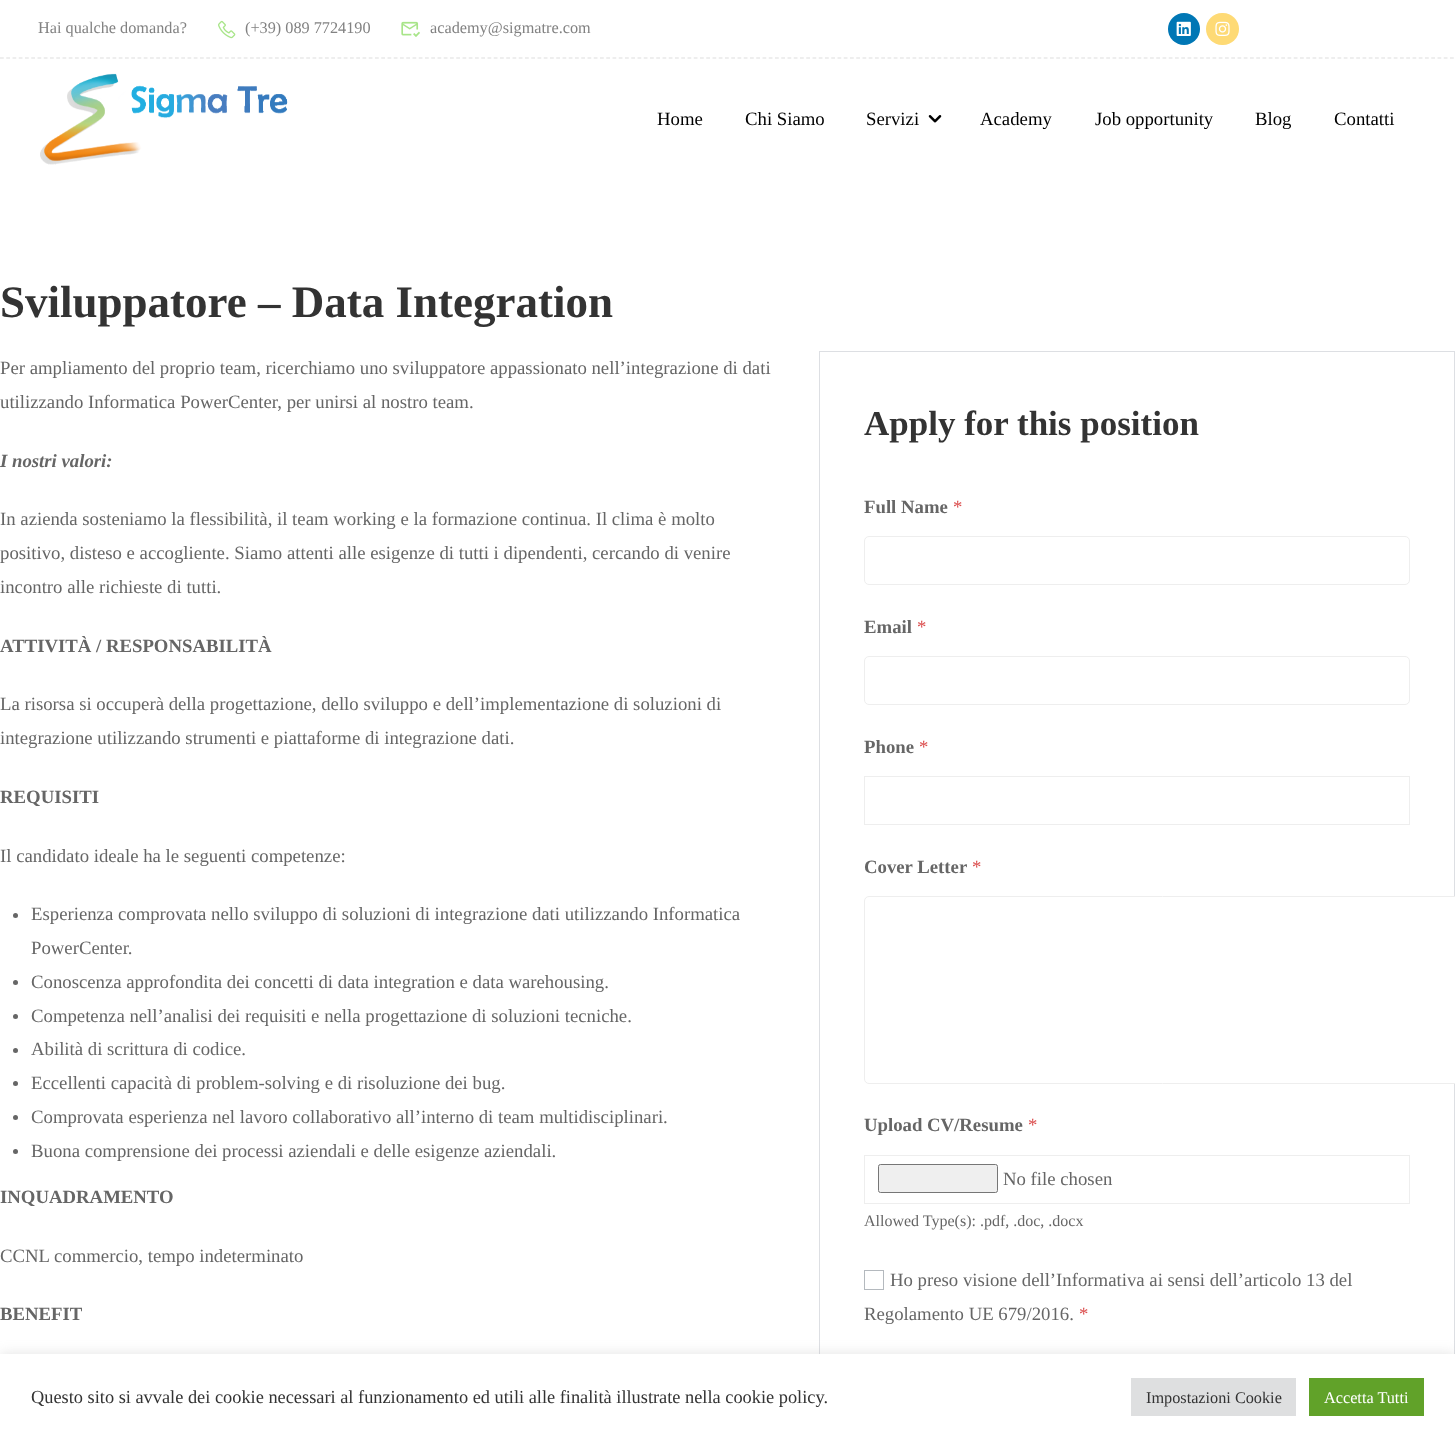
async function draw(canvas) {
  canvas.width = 1455
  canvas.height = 1440
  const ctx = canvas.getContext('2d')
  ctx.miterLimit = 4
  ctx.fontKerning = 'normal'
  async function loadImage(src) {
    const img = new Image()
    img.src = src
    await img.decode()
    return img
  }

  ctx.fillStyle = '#fff'
  ctx.fillRect(0, 0, 1455, 1440)
  ctx.beginPath()
  ctx.moveTo(0, 58)
  ctx.lineTo(1455, 58)
  ctx.strokeStyle = '#ddd'
  ctx.lineWidth = 1.2
  ctx.setLineDash([3.75, 2.5])
  ctx.stroke()
  ctx.font = '16.25px Liberation Serif'
  ctx.fillStyle = '#828282'
  ctx.fillText('Hai qualche domanda?', 38, 33)
  ctx.drawImage(await loadImage('image0.png'), 218, 20, 18, 19)
  ctx.fillText('(+39) 089 7724190', 245, 33)
  ctx.drawImage(await loadImage('image1.png'), 401, 21, 19, 16)
  ctx.fillText('academy@sigmatre.com', 430, 33)
  ctx.fillStyle = '#0077b5'
  ctx.beginPath()
  ctx.arc(1184, 29, 16, 0, 2 * Math.PI)
  ctx.fill()
  ctx.drawImage(await loadImage('image2.png'), 1176, 21, 15, 15)
  ctx.fillStyle = '#feda75'
  ctx.beginPath()
  ctx.roundRect(1206, 13, 33, 32, 16)
  ctx.fill()
  ctx.drawImage(await loadImage('image3.png'), 1215, 21, 15, 15)
  ctx.drawImage(await loadImage('image4.png'), 40, 73, 248, 92)
  ctx.font = '18.75px Liberation Serif'
  ctx.fillStyle = '#000'
  ctx.fillText('Home', 657, 125)
  ctx.fillText('Chi Siamo', 745, 125)
  ctx.fillText('Servizi', 866, 125)
  ctx.drawImage(await loadImage('image5.png'), 928, 115, 14, 8)
  ctx.fillText('Academy', 980, 125)
  ctx.fillText('Job opportunity', 1095, 125)
  ctx.fillText('Blog', 1255, 125)
  ctx.fillText('Contatti', 1334, 125)
  ctx.font = 'bold 45px Liberation Serif'
  ctx.fillStyle = '#333'
  ctx.fillText('Sviluppatore – Data Integration', 0, 317)
  ctx.font = '18.75px Liberation Serif'
  ctx.fillStyle = '#666'
  ctx.fillText('Per ampliamento del proprio team, ricerchiamo uno sviluppatore appassionato nell’integrazione di dati', 0, 374)
  ctx.fillText('utilizzando Informatica PowerCenter, per unirsi al nostro team.', 0, 408)
  ctx.font = 'italic bold 18.75px Liberation Serif'
  ctx.fillText('I nostri valori:', 0, 467)
  ctx.font = '18.75px Liberation Serif'
  ctx.fillText('In azienda sosteniamo la flessibilità, il team working e la formazione continua. Il clima è molto', 0, 525)
  ctx.fillText('positivo, disteso e accogliente. Siamo attenti alle esigenze di tutti i dipendenti, cercando di venire', 0, 559)
  ctx.fillText('incontro alle richieste di tutti.', 0, 593)
  ctx.font = 'bold 18.75px Liberation Serif'
  ctx.fillText('ATTIVITÀ / RESPONSABILITÀ', 0, 652)
  ctx.font = '18.75px Liberation Serif'
  ctx.fillText('La risorsa si occuperà della progettazione, dello sviluppo e dell’implementazione di soluzioni di', 0, 710)
  ctx.fillText('integrazione utilizzando strumenti e piattaforme di integrazione dati.', 0, 744)
  ctx.font = 'bold 18.75px Liberation Serif'
  ctx.fillText('REQUISITI', 0, 803)
  ctx.font = '18.75px Liberation Serif'
  ctx.fillText('Il candidato ideale ha le seguenti competenze:', 0, 862)
  ctx.beginPath()
  ctx.arc(15.5, 915.5, 2.5, 0, 2 * Math.PI)
  ctx.fill()
  ctx.fillText('Esperienza comprovata nello sviluppo di soluzioni di integrazione dati utilizzando Informatica', 31, 920)
  ctx.fillText('PowerCenter.', 31, 954)
  ctx.beginPath()
  ctx.arc(15.5, 982.5, 2.5, 0, 2 * Math.PI)
  ctx.fill()
  ctx.fillText('Conoscenza approfondita dei concetti di data integration e data warehousing.', 31, 988)
  ctx.beginPath()
  ctx.arc(15.5, 1016.5, 2.5, 0, 2 * Math.PI)
  ctx.fill()
  ctx.fillText('Competenza nell’analisi dei requisiti e nella progettazione di soluzioni tecniche.', 31, 1022)
  ctx.beginPath()
  ctx.arc(15.5, 1050.5, 2.5, 0, 2 * Math.PI)
  ctx.fill()
  ctx.fillText('Abilità di scrittura di codice.', 31, 1055)
  ctx.beginPath()
  ctx.arc(15.5, 1083.5, 2.5, 0, 2 * Math.PI)
  ctx.fill()
  ctx.fillText('Eccellenti capacità di problem-solving e di risoluzione dei bug.', 31, 1089)
  ctx.beginPath()
  ctx.arc(15.5, 1117.5, 2.5, 0, 2 * Math.PI)
  ctx.fill()
  ctx.fillText('Comprovata esperienza nel lavoro collaborativo all’interno di team multidisciplinari.', 31, 1123)
  ctx.beginPath()
  ctx.arc(15.5, 1151.5, 2.5, 0, 2 * Math.PI)
  ctx.fill()
  ctx.fillText('Buona comprensione dei processi aziendali e delle esigenze aziendali.', 31, 1157)
  ctx.font = 'bold 18.75px Liberation Serif'
  ctx.fillText('INQUADRAMENTO', 0, 1203)
  ctx.font = '18.75px Liberation Serif'
  ctx.fillText('CCNL commercio, tempo indeterminato', 0, 1262)
  ctx.font = 'bold 18.75px Liberation Serif'
  ctx.fillText('BENEFIT', 0, 1320)
  ctx.strokeStyle = '#dddfe3'
  ctx.lineWidth = 1
  ctx.setLineDash([])
  ctx.strokeRect(819.5, 351.5, 635, 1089)
  ctx.font = 'bold 35px Liberation Serif'
  ctx.fillStyle = '#333'
  ctx.fillText('Apply for this position', 864, 435)
  ctx.font = 'bold 18.75px Liberation Serif'
  ctx.fillStyle = '#666'
  ctx.fillText('Full Name', 864, 513)
  ctx.font = '18.75px Liberation Serif'
  ctx.fillStyle = '#db4c4c'
  ctx.fillText('*', 953, 513)
  ctx.beginPath()
  ctx.roundRect(864.5, 536.5, 545, 48, 4.5)
  ctx.strokeStyle = '#eee'
  ctx.stroke()
  ctx.font = 'bold 18.75px Liberation Serif'
  ctx.fillStyle = '#666'
  ctx.fillText('Email', 864, 633)
  ctx.font = '18.75px Liberation Serif'
  ctx.fillStyle = '#db4c4c'
  ctx.fillText('*', 917, 633)
  ctx.beginPath()
  ctx.roundRect(864.5, 656.5, 545, 48, 4.5)
  ctx.stroke()
  ctx.font = 'bold 18.75px Liberation Serif'
  ctx.fillStyle = '#666'
  ctx.fillText('Phone', 864, 753)
  ctx.font = '18.75px Liberation Serif'
  ctx.fillStyle = '#db4c4c'
  ctx.fillText('*', 919, 753)
  ctx.strokeRect(864.5, 776.5, 545, 48)
  ctx.font = 'bold 18.75px Liberation Serif'
  ctx.fillStyle = '#666'
  ctx.fillText('Cover Letter', 864, 873)
  ctx.font = '18.75px Liberation Serif'
  ctx.fillStyle = '#db4c4c'
  ctx.fillText('*', 972, 873)
  ctx.fillStyle = '#fff'
  ctx.beginPath()
  ctx.roundRect(864.5, 896.5, 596, 187, 4.5)
  ctx.fill()
  ctx.stroke()
  ctx.font = 'bold 18.75px Liberation Serif'
  ctx.fillStyle = '#666'
  ctx.fillText('Upload CV/Resume', 864, 1131)
  ctx.font = '18.75px Liberation Serif'
  ctx.fillStyle = '#db4c4c'
  ctx.fillText('*', 1028, 1131)
  ctx.strokeRect(864.5, 1155.5, 545, 48)
  ctx.fillStyle = '#efefef'
  ctx.beginPath()
  ctx.roundRect(878.5, 1164.5, 119, 28, 2)
  ctx.fill()
  ctx.strokeStyle = '#767676'
  ctx.stroke()
  ctx.fillStyle = '#666'
  ctx.fillText('No file chosen', 1003, 1185)
  ctx.font = '16px Liberation Serif'
  ctx.fillText('Allowed Type(s): .pdf, .doc, .docx', 864, 1226)
  ctx.strokeStyle = '#b4b9be'
  ctx.strokeRect(864.5, 1270.5, 19, 19)
  ctx.font = '18.75px Liberation Serif'
  ctx.fillText('Ho preso visione dell’Informativa ai sensi dell’articolo 13 del', 890, 1286)
  ctx.fillText('Regolamento UE 679/2016.', 864, 1320)
  ctx.fillStyle = '#db4c4c'
  ctx.fillText('*', 1079, 1320)
  ctx.fillStyle = '#acabab4d'
  ctx.filter = 'blur(6px)'
  ctx.beginPath()
  ctx.rect(0, 1353, 1455, 86)
  ctx.fill()
  ctx.filter = 'none'
  ctx.fillStyle = '#fff'
  ctx.fillRect(0, 1354, 1455, 86)
  ctx.font = '18.35px Liberation Serif'
  ctx.fillStyle = '#333'
  ctx.fillText('Questo sito si avvale dei cookie necessari al funzionamento ed utili alle finalità illustrate nella cookie policy.', 31, 1403)
  ctx.fillStyle = '#dedfe0'
  ctx.fillRect(1131, 1378, 165, 38)
  ctx.font = '16.25px Liberation Serif'
  ctx.fillStyle = '#333'
  ctx.fillText('Impostazioni Cookie', 1146, 1403)
  ctx.fillStyle = '#61a229'
  ctx.fillRect(1309, 1378, 115, 38)
  ctx.fillStyle = '#fff'
  ctx.fillText('Accetta Tutti', 1324, 1403)
}

draw(document.querySelector('canvas'))
